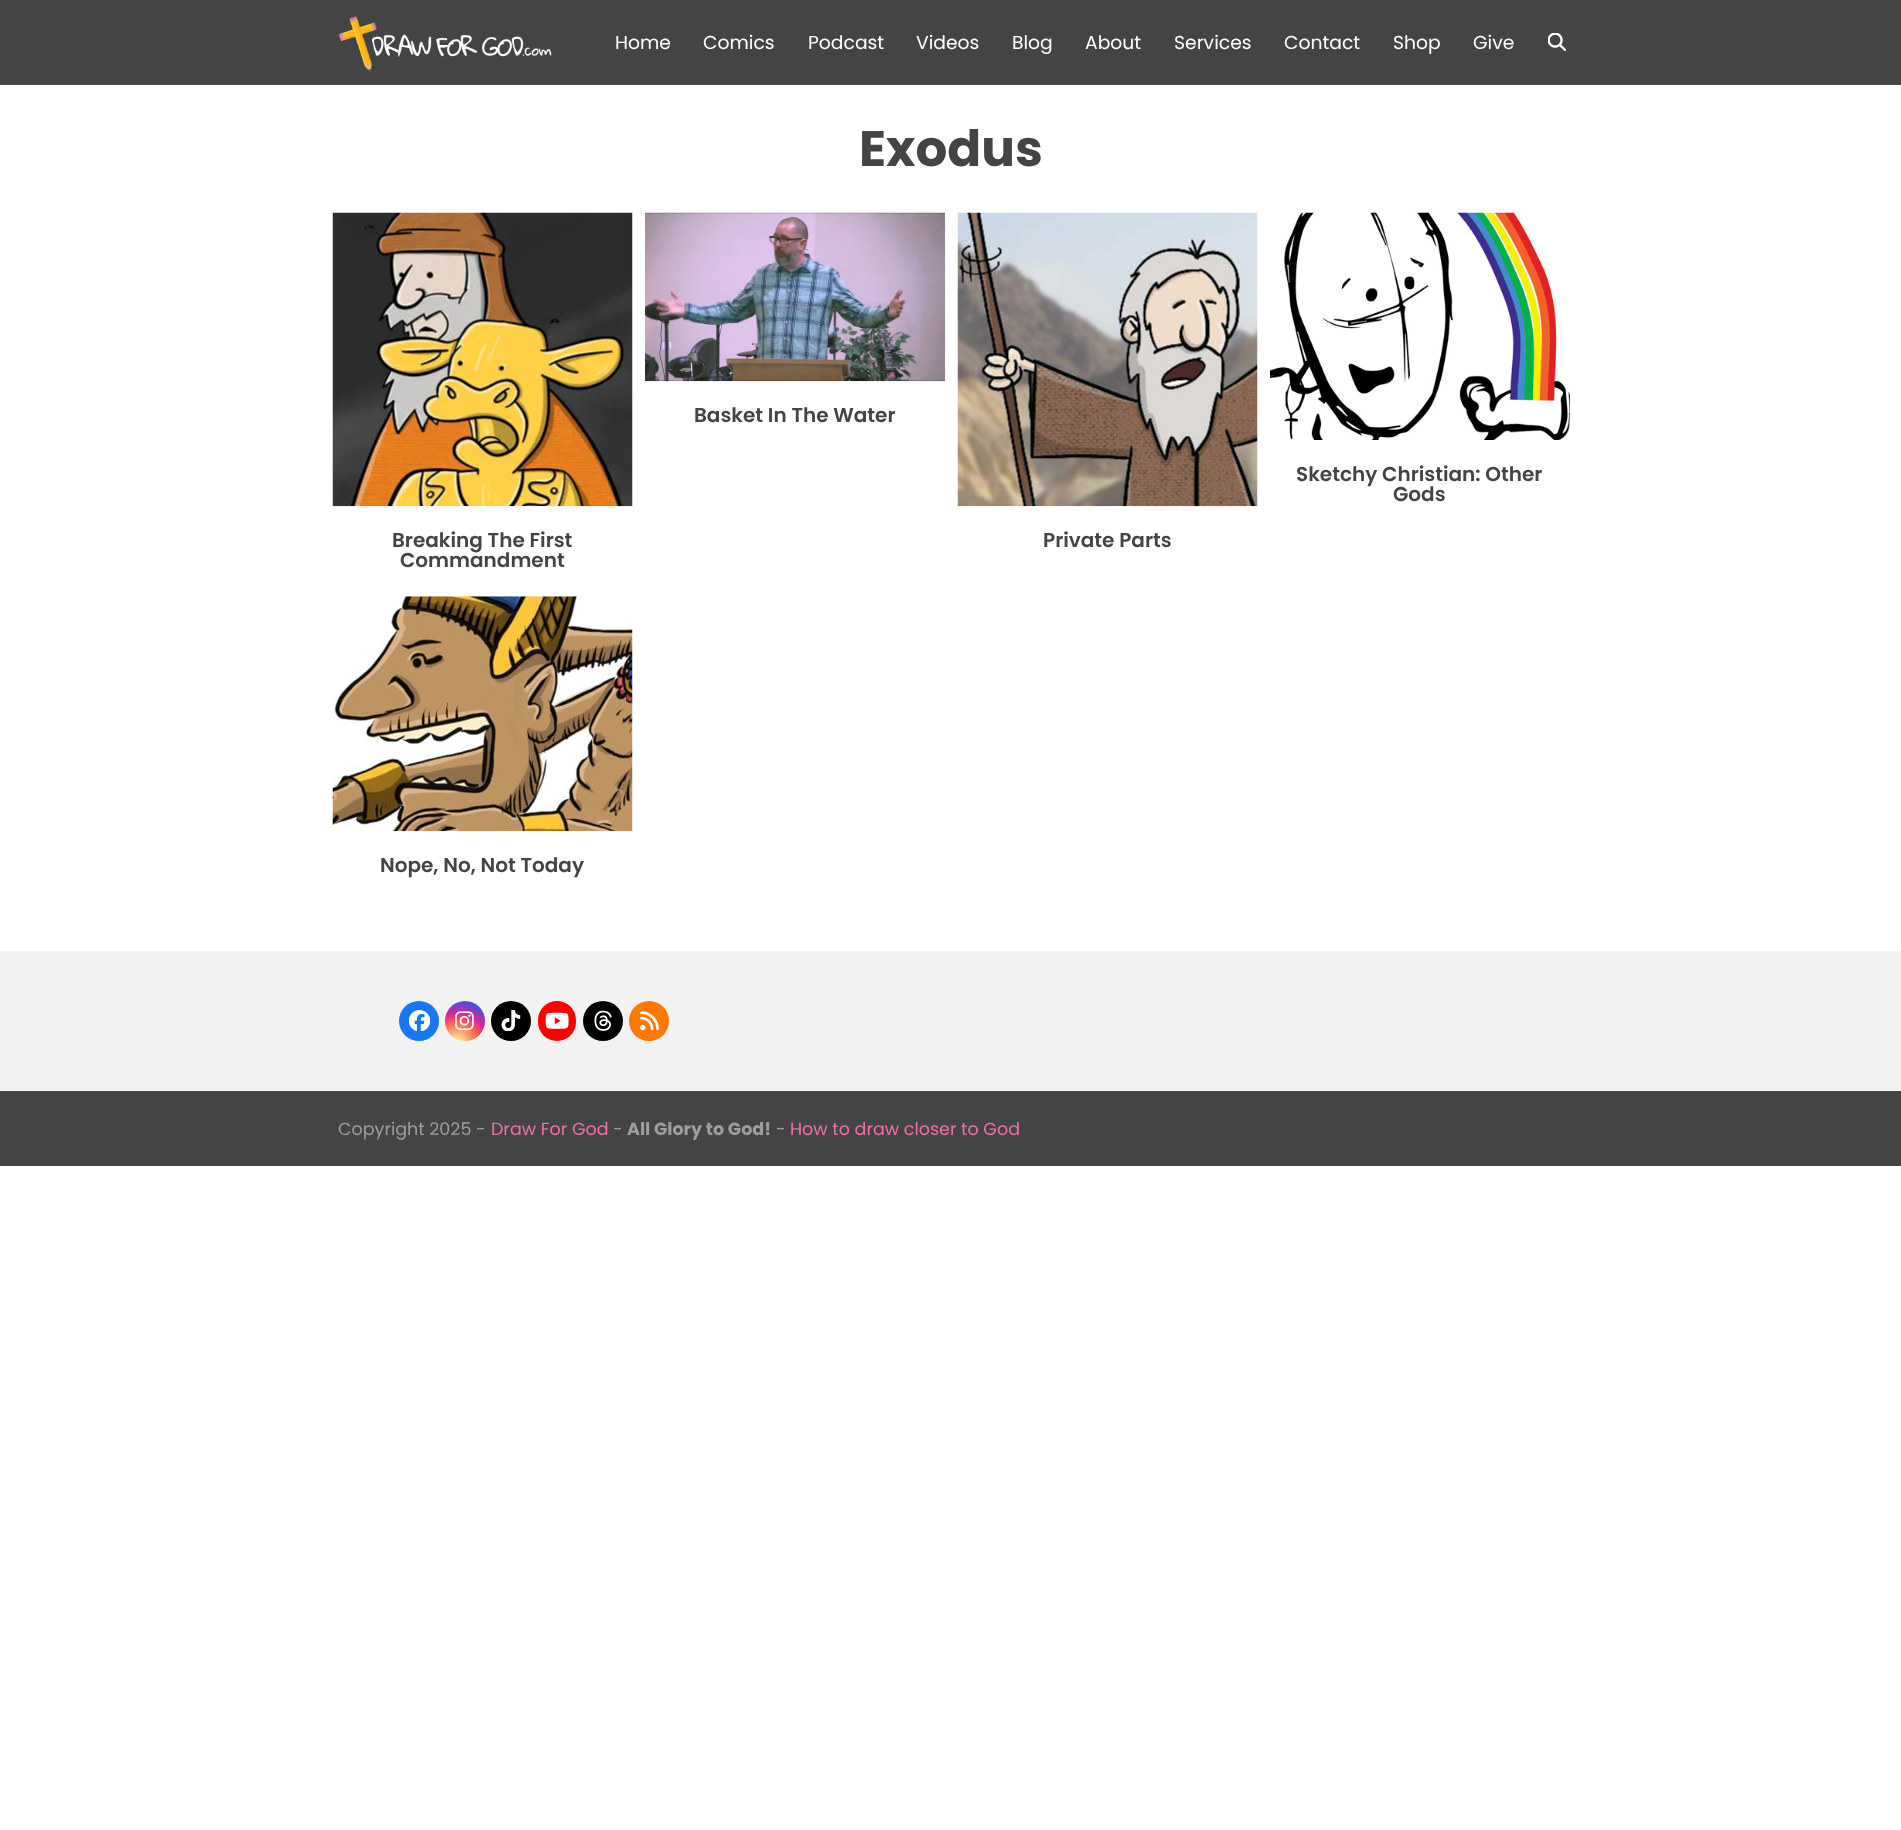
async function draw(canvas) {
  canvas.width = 1901
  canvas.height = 1830
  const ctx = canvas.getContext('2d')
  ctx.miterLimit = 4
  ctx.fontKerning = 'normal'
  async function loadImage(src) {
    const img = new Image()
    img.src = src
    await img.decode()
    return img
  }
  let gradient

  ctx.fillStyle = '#fff'
  ctx.fillRect(0, 0, 1901, 1830)
  ctx.fillStyle = '#444'
  ctx.fillRect(0, 0, 1901, 85)
  ctx.drawImage(await loadImage('image0.png'), 338, 16, 214, 57)
  ctx.font = '18.75px Poppins'
  ctx.fillStyle = '#fff'
  ctx.fillText('Home', 615, 49)
  ctx.fillText('Comics', 703, 49)
  ctx.fillText('Podcast', 808, 49)
  ctx.fillText('Videos', 916, 49)
  ctx.fillText('Blog', 1012, 49)
  ctx.fillText('About', 1085, 49)
  ctx.fillText('Services', 1174, 49)
  ctx.fillText('Contact', 1284, 49)
  ctx.fillText('Shop', 1393, 49)
  ctx.fillText('Give', 1473, 49)
  ctx.drawImage(await loadImage('image1.png'), 1548, 33, 18, 18)
  ctx.font = 'bold 50px Poppins'
  ctx.fillStyle = '#444'
  ctx.fillText('Exodus', 859, 166)
  ctx.drawImage(await loadImage('image2.png'), 645, 212, 300, 170)
  ctx.font = '600 20px Poppins'
  ctx.fillText('Basket In The Water', 694, 422)
  ctx.drawImage(await loadImage('image3.png'), 1270, 212, 300, 228)
  ctx.fillText('Sketchy Christian: Other', 1296, 481)
  ctx.fillText('Gods', 1393, 501)
  ctx.drawImage(await loadImage('image4.png'), 332, 212, 301, 295)
  ctx.fillText('Breaking The First', 392, 547)
  ctx.fillText('Commandment', 400, 567)
  ctx.drawImage(await loadImage('image5.png'), 957, 212, 301, 295)
  ctx.fillText('Private Parts', 1043, 547)
  ctx.drawImage(await loadImage('image6.png'), 332, 596, 301, 236)
  ctx.fillText('Nope, No, Not Today', 380, 872)
  ctx.fillStyle = '#f2f2f2'
  ctx.fillRect(0, 951, 1901, 140)
  ctx.fillStyle = '#1877f2'
  ctx.beginPath()
  ctx.arc(419, 1021, 20, 0, 2 * Math.PI)
  ctx.fill()
  ctx.drawImage(await loadImage('image7.png'), 409, 1010, 21, 21)
  gradient = ctx.createRadialGradient(457, 1044, 0, 457, 1044, 51)
  gradient.addColorStop(0, '#fdf497')
  gradient.addColorStop(0.05, '#fdf497')
  gradient.addColorStop(0.45, '#fd5949')
  gradient.addColorStop(0.6, '#d6249f')
  gradient.addColorStop(0.9, '#285aeb')
  ctx.fillStyle = gradient
  ctx.beginPath()
  ctx.arc(465, 1021, 20, 0, 2 * Math.PI)
  ctx.fill()
  ctx.drawImage(await loadImage('image8.png'), 455, 1011, 19, 20)
  ctx.fillStyle = '#000'
  ctx.beginPath()
  ctx.arc(511, 1021, 20, 0, 2 * Math.PI)
  ctx.fill()
  ctx.drawImage(await loadImage('image9.png'), 501, 1010, 20, 21)
  ctx.fillStyle = '#f00'
  ctx.beginPath()
  ctx.roundRect(538, 1001, 38, 40, 19)
  ctx.fill()
  ctx.drawImage(await loadImage('image10.png'), 545, 1012, 24, 17)
  ctx.fillStyle = '#000'
  ctx.beginPath()
  ctx.arc(603, 1021, 20, 0, 2 * Math.PI)
  ctx.fill()
  ctx.drawImage(await loadImage('image11.png'), 594, 1010, 18, 21)
  ctx.fillStyle = '#ff7900'
  ctx.beginPath()
  ctx.arc(649, 1021, 20, 0, 2 * Math.PI)
  ctx.fill()
  ctx.drawImage(await loadImage('image12.png'), 640, 1011, 19, 20)
  ctx.fillStyle = '#444'
  ctx.fillRect(0, 1091, 1901, 75)
  ctx.font = '17.5px Poppins'
  ctx.fillStyle = '#9e9e9e'
  ctx.fillText('Copyright 2025 -', 338, 1135)
  ctx.fillStyle = '#ee71a9'
  ctx.fillText('Draw For God', 491, 1135)
  ctx.fillStyle = '#9e9e9e'
  ctx.fillText('-', 613, 1135)
  ctx.font = 'bold 17.5px Poppins'
  ctx.fillText('All Glory to God!', 627, 1135)
  ctx.font = '17.5px Poppins'
  ctx.fillText('-', 776, 1135)
  ctx.fillStyle = '#ee71a9'
  ctx.fillText('How to draw closer to God', 790, 1135)
}

draw(document.querySelector('canvas'))
